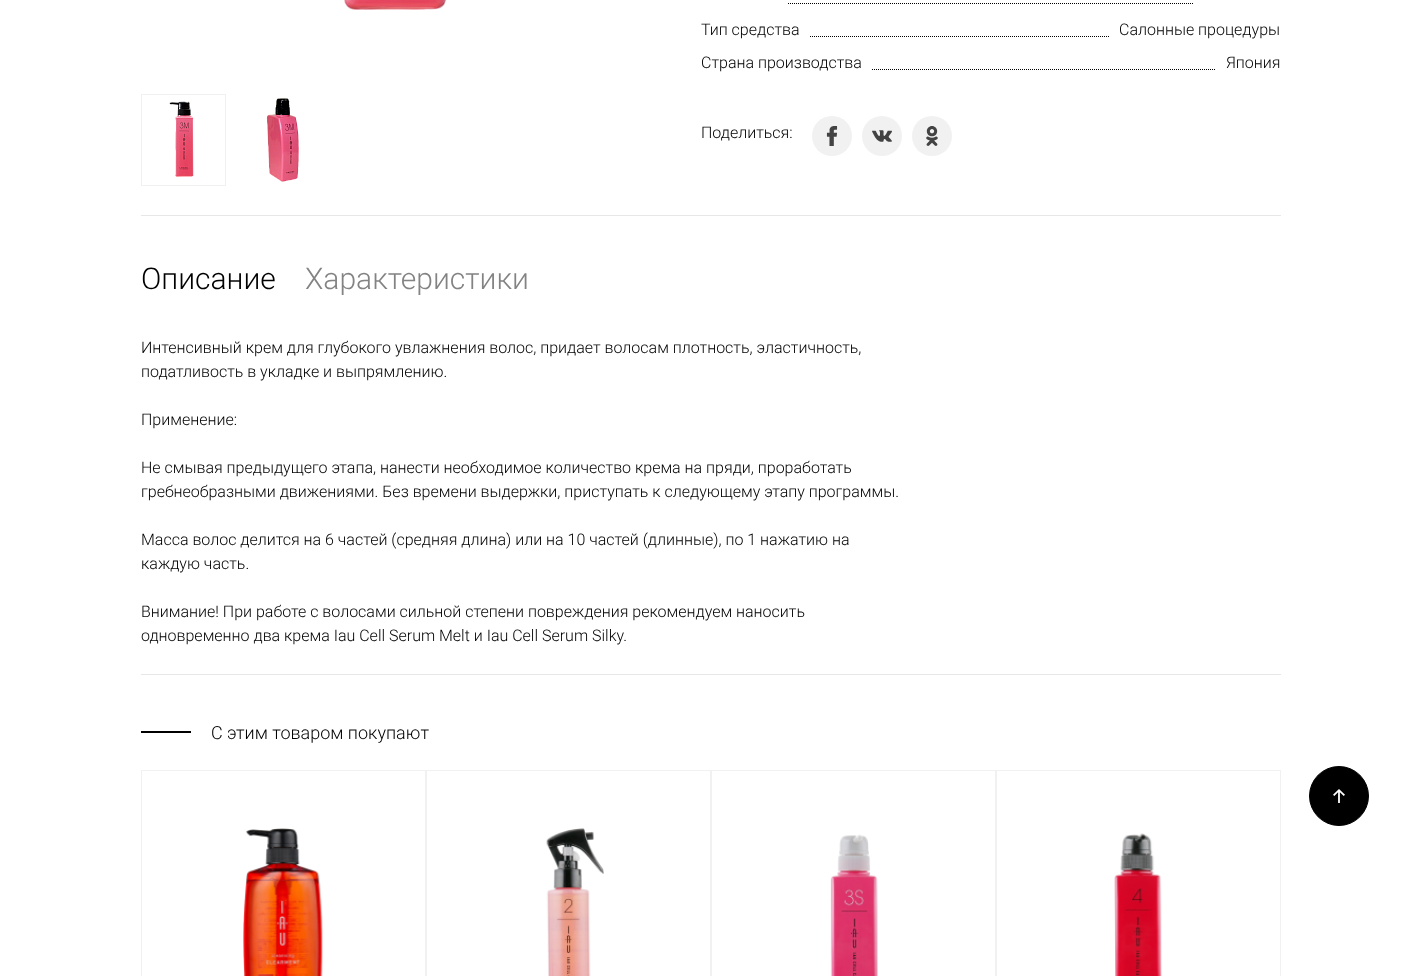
async function draw(canvas) {
  canvas.width = 1421
  canvas.height = 976
  const ctx = canvas.getContext('2d')
  ctx.miterLimit = 4
  ctx.fontKerning = 'normal'
  async function loadImage(src) {
    const img = new Image()
    img.src = src
    await img.decode()
    return img
  }

  ctx.fillStyle = '#fff'
  ctx.fillRect(0, 0, 1421, 976)
  ctx.drawImage(await loadImage('image0.png'), 344, 0, 103, 10)
  ctx.strokeStyle = '#f1f1f1'
  ctx.strokeRect(141.5, 94.5, 84, 91)
  ctx.drawImage(await loadImage('image1.png'), 169, 101, 25, 76)
  ctx.drawImage(await loadImage('image2.png'), 266, 98, 33, 84)
  ctx.drawImage(await loadImage('image3.png'), 788, 3, 405, 1)
  ctx.drawImage(await loadImage('image4.png'), 810, 36, 299, 1)
  ctx.font = '300 16px Roboto'
  ctx.fillStyle = '#000'
  ctx.fillText('Тип средства', 701, 35)
  ctx.fillText('Салонные процедуры', 1119, 35)
  ctx.drawImage(await loadImage('image5.png'), 872, 69, 343, 1)
  ctx.fillText('Страна производства', 701, 68)
  ctx.fillText('Япония', 1226, 68)
  ctx.fillText('Поделиться:', 701, 138)
  ctx.fillStyle = '#f1f1f1'
  ctx.beginPath()
  ctx.arc(832, 136, 20, 0, 2 * Math.PI)
  ctx.fill()
  ctx.drawImage(await loadImage('image6.png'), 826, 126, 12, 20)
  ctx.beginPath()
  ctx.arc(882, 136, 20, 0, 2 * Math.PI)
  ctx.fill()
  ctx.drawImage(await loadImage('image7.png'), 872, 130, 20, 12)
  ctx.beginPath()
  ctx.arc(932, 136, 20, 0, 2 * Math.PI)
  ctx.fill()
  ctx.drawImage(await loadImage('image8.png'), 926, 126, 12, 20)
  ctx.fillStyle = '#e7e7e7'
  ctx.fillRect(141, 215, 1140, 1)
  ctx.fillRect(141, 674, 1140, 1)
  ctx.font = '300 30px Roboto'
  ctx.fillStyle = '#000'
  ctx.fillText('Описание', 141, 289)
  ctx.fillStyle = '#838383'
  ctx.fillText('Характеристики', 305, 289)
  ctx.font = '300 16px Roboto'
  ctx.fillStyle = '#000'
  ctx.fillText('Интенсивный крем для глубокого увлажнения волос, придает волосам плотность, эластичность,', 141, 353)
  ctx.fillText('податливость в укладке и выпрямлению.', 141, 377)
  ctx.fillText('Применение:', 141, 425)
  ctx.fillText('Не смывая предыдущего этапа, нанести необходимое количество крема на пряди, проработать', 141, 473)
  ctx.fillText('гребнеобразными движениями. Без времени выдержки, приступать к следующему этапу программы.', 141, 497)
  ctx.fillText('Масса волос делится на 6 частей (средняя длина) или на 10 частей (длинные), по 1 нажатию на', 141, 545)
  ctx.fillText('каждую часть.', 141, 569)
  ctx.fillText('Внимание! При работе с волосами сильной степени повреждения рекомендуем наносить', 141, 617)
  ctx.fillText('одновременно два крема Iau Cell Serum Melt и Iau Cell Serum Silky.', 141, 641)
  ctx.fillRect(141, 731, 50, 2)
  ctx.font = '300 18px Roboto'
  ctx.fillText('С этим товаром покупают', 211, 739)
  ctx.strokeRect(141.5, 770.5, 284, 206)
  ctx.drawImage(await loadImage('image9.png'), 243, 828, 80, 148)
  ctx.strokeRect(426.5, 770.5, 284, 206)
  ctx.drawImage(await loadImage('image10.png'), 546, 828, 58, 148)
  ctx.strokeRect(711.5, 770.5, 284, 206)
  ctx.drawImage(await loadImage('image11.png'), 830, 834, 48, 142)
  ctx.strokeRect(996.5, 770.5, 284, 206)
  ctx.drawImage(await loadImage('image12.png'), 1114, 833, 48, 143)
  ctx.beginPath()
  ctx.arc(1339, 796, 29.5, 0, 2 * Math.PI)
  ctx.fill()
  ctx.strokeStyle = '#000'
  ctx.stroke()
  ctx.drawImage(await loadImage('image13.png'), 1333, 789, 12, 14)
}

draw(document.querySelector('canvas'))
